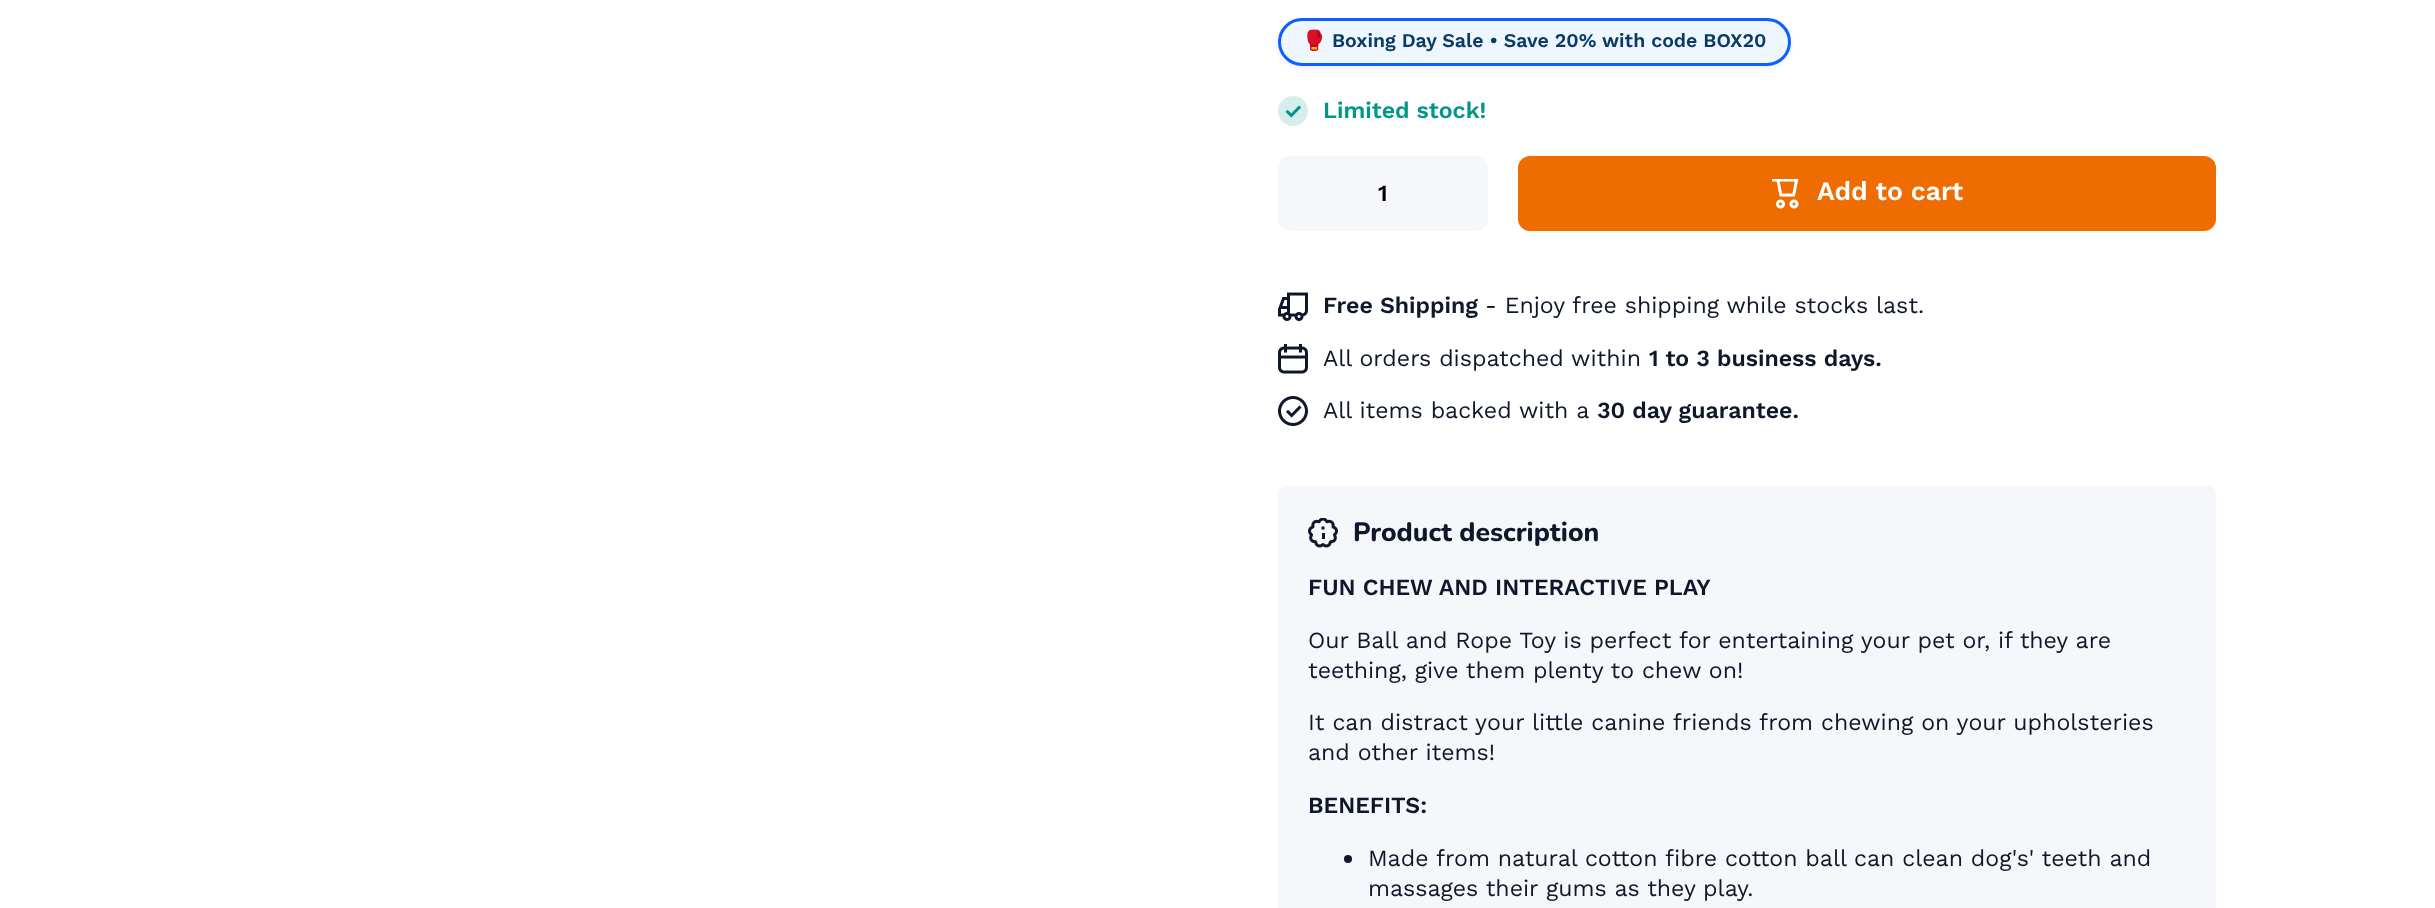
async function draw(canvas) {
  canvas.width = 2435
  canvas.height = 908
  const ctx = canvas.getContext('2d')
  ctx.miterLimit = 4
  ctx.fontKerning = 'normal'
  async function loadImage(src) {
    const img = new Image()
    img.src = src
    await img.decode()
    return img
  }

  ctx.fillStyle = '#fff'
  ctx.fillRect(0, 0, 2435, 908)
  ctx.fillStyle = '#00000014'
  ctx.filter = 'blur(2px)'
  ctx.beginPath()
  ctx.roundRect(1278, 20, 513, 48, 24)
  ctx.fill()
  ctx.filter = 'none'
  ctx.fillStyle = '#eef6ff'
  ctx.beginPath()
  ctx.roundRect(1279.5, 19.5, 510, 45, 22.5)
  ctx.fill()
  ctx.strokeStyle = '#0b5fff'
  ctx.lineWidth = 3
  ctx.stroke()
  ctx.font = 'bold 19.5px Noto Color Emoji'
  ctx.fillStyle = '#0b3a66'
  ctx.fillText('🥊', 1302, 47)
  ctx.font = '600 19.5px Work Sans'
  ctx.fillText('Boxing Day Sale • Save 20% with code BOX20', 1332, 47)
  ctx.drawImage(await loadImage('image0.png'), 1278, 96, 30, 30)
  ctx.font = '600 23.1px Work Sans'
  ctx.fillStyle = '#009688'
  ctx.fillText('Limited stock!', 1323, 118)
  ctx.fillStyle = '#f6f7fa'
  ctx.beginPath()
  ctx.roundRect(1278, 156, 210, 75, 12)
  ctx.fill()
  ctx.fillStyle = '#000'
  ctx.fillText('1', 1378, 201)
  ctx.fillStyle = '#ef6c00'
  ctx.beginPath()
  ctx.roundRect(1518, 156, 698, 75, 12)
  ctx.fill()
  ctx.drawImage(await loadImage('image1.png'), 1772, 179, 27, 30)
  ctx.font = '600 26.5px Work Sans'
  ctx.fillStyle = '#fff'
  ctx.fillText('Add to cart', 1817, 200)
  ctx.drawImage(await loadImage('image2.png'), 1278, 292, 30, 29)
  ctx.font = '600 23.1px Work Sans'
  ctx.fillStyle = '#0f172a'
  ctx.fillText('Free Shipping', 1323, 313)
  ctx.font = '23.1px Work Sans'
  ctx.fillText('- Enjoy free shipping while stocks last.', 1485, 313)
  ctx.drawImage(await loadImage('image3.png'), 1278, 344, 30, 30)
  ctx.fillText('All orders dispatched within', 1323, 366)
  ctx.font = '600 23.1px Work Sans'
  ctx.fillText('1 to 3 business days.', 1649, 366)
  ctx.drawImage(await loadImage('image4.png'), 1278, 396, 30, 30)
  ctx.font = '23.1px Work Sans'
  ctx.fillText('All items backed with a', 1323, 418)
  ctx.font = '600 23.1px Work Sans'
  ctx.fillText('30 day guarantee.', 1597, 418)
  ctx.fillStyle = '#f6f7fa'
  ctx.beginPath()
  ctx.roundRect(1278, 486, 938, 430, 8)
  ctx.fill()
  ctx.drawImage(await loadImage('image5.png'), 1308, 518, 30, 30)
  ctx.font = '800 26.5px Nunito'
  ctx.fillStyle = '#0f172a'
  ctx.fillText('Product description', 1353, 541)
  ctx.font = '600 23.1px Work Sans'
  ctx.fillText('FUN CHEW AND INTERACTIVE PLAY', 1308, 595)
  ctx.font = '23.1px Work Sans'
  ctx.fillText('Our Ball and Rope Toy is perfect for entertaining your pet or, if they are', 1308, 648)
  ctx.fillText('teething, give them plenty to chew on!', 1308, 678)
  ctx.fillText('It can distract your little canine friends from chewing on your upholsteries', 1308, 730)
  ctx.fillText('and other items!', 1308, 760)
  ctx.font = '600 23.1px Work Sans'
  ctx.fillText('BENEFITS:', 1308, 813)
  ctx.beginPath()
  ctx.arc(1348, 859, 4, 0, 2 * Math.PI)
  ctx.fill()
  ctx.font = '23.1px Work Sans'
  ctx.fillText('Made from natural cotton fibre cotton ball can clean dog\'s\' teeth and', 1368, 866)
  ctx.fillText('massages their gums as they play.', 1368, 896)
}

draw(document.querySelector('canvas'))
